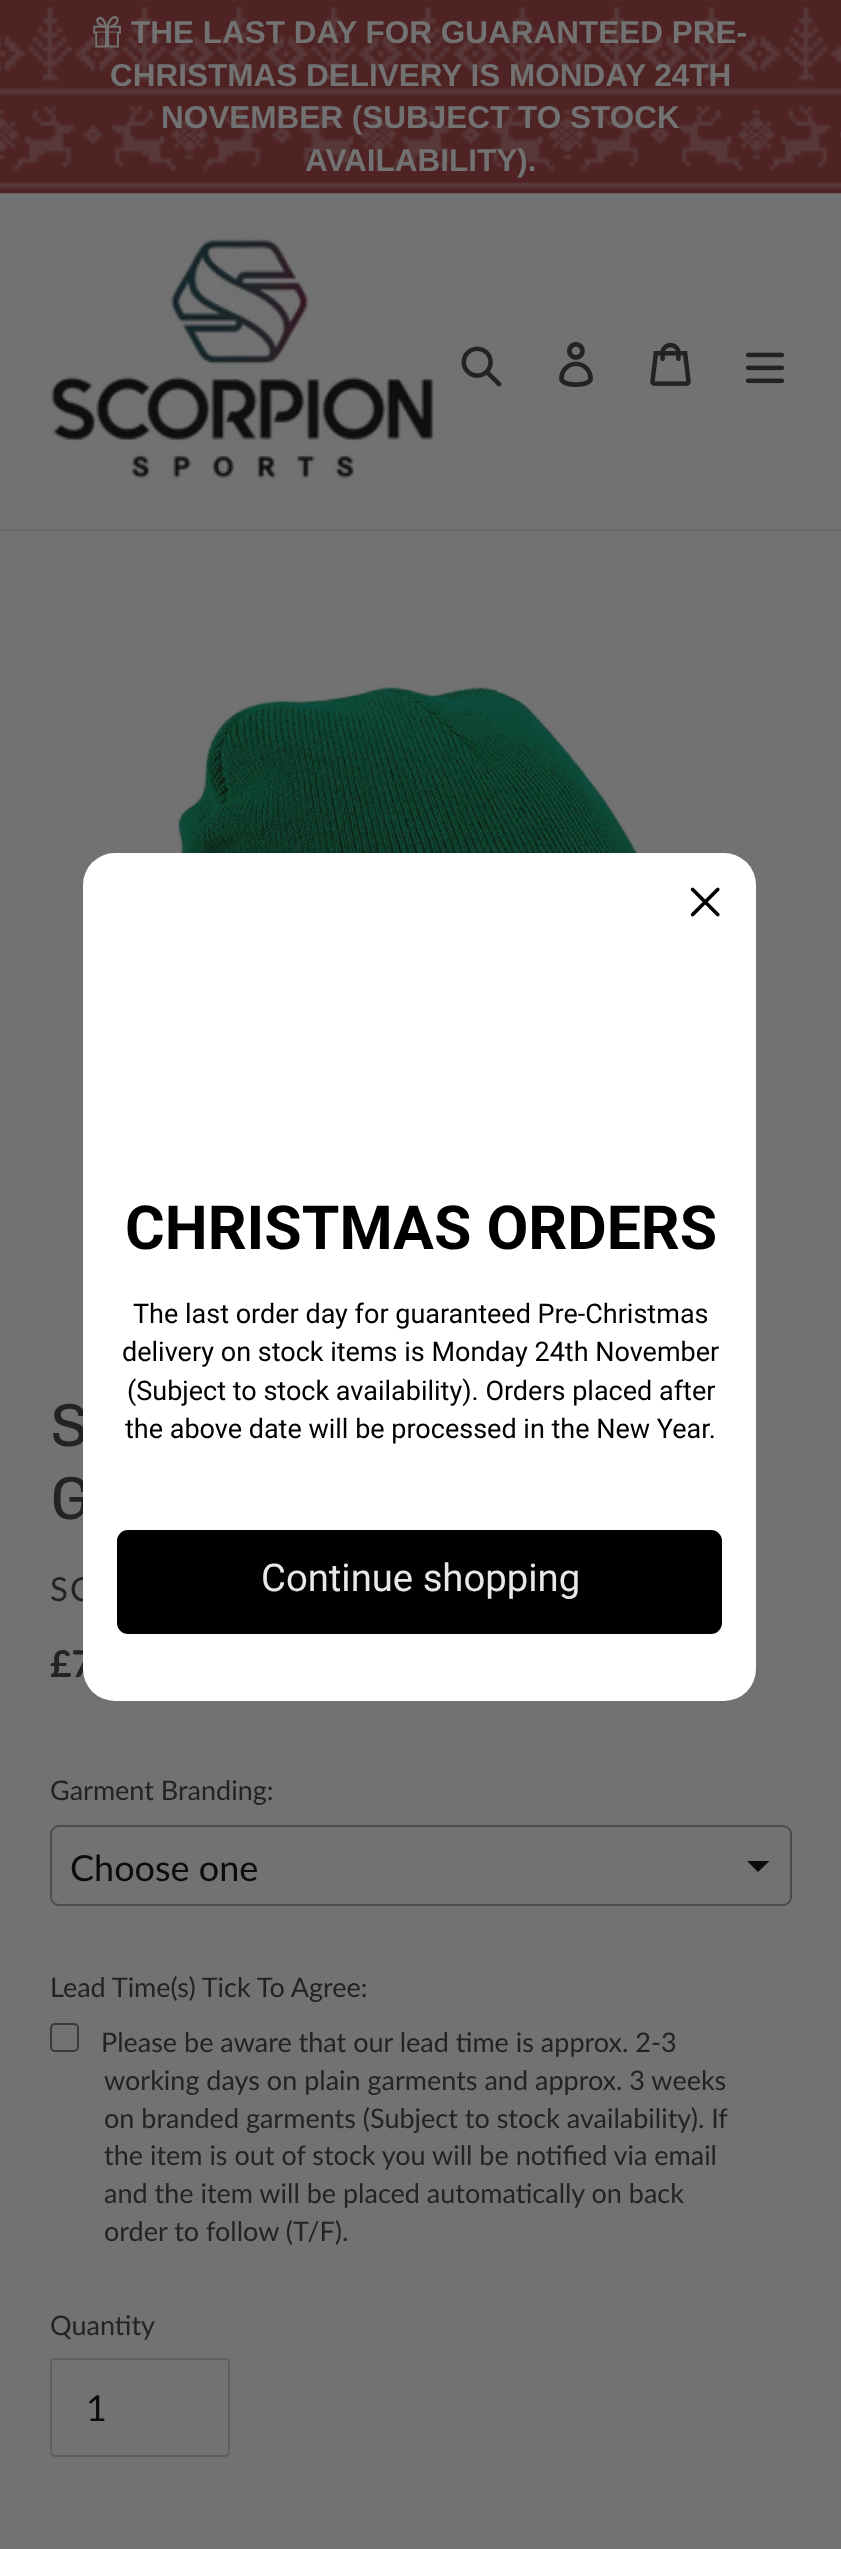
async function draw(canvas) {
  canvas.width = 841
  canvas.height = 2549
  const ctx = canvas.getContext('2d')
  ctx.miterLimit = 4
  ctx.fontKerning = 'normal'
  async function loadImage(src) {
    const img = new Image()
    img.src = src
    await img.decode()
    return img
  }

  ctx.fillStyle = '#727272'
  ctx.fillRect(0, 0, 841, 2549)
  ctx.drawImage(await loadImage('image0.png'), 0, 0, 841, 194)
  ctx.drawImage(await loadImage('image1.png'), 93, 16, 28, 32)
  ctx.font = 'bold 31.5px Liberation Sans'
  ctx.fillText('THE LAST DAY FOR GUARANTEED PRE-', 131, 43)
  ctx.fillText('CHRISTMAS DELIVERY IS MONDAY 24TH', 110, 86)
  ctx.fillText('NOVEMBER (SUBJECT TO STOCK', 161, 128)
  ctx.fillText('AVAILABILITY).', 305, 171)
  ctx.fillStyle = '#6a6a6a'
  ctx.fillRect(0, 529, 841, 2)
  ctx.drawImage(await loadImage('image2.png'), 50, 235, 385, 249)
  ctx.drawImage(await loadImage('image3.png'), 461, 346, 41, 41)
  ctx.drawImage(await loadImage('image4.png'), 559, 342, 34, 45)
  ctx.drawImage(await loadImage('image5.png'), 650, 342, 41, 44)
  ctx.drawImage(await loadImage('image6.png'), 745, 352, 40, 32)
  ctx.font = '60.75px Chivo'
  ctx.fillStyle = '#232323'
  ctx.fillText('S', 50, 1446)
  ctx.fillText('G', 50, 1519)
  ctx.letterSpacing = '2px'
  ctx.font = '33px Lato'
  ctx.fillText('SC', 50, 1601)
  ctx.letterSpacing = '0px'
  ctx.font = 'bold 37px Lato'
  ctx.fillText('£7', 50, 1677)
  ctx.fillStyle = '#fff'
  ctx.beginPath()
  ctx.roundRect(83, 853, 673, 848, 32)
  ctx.fill()
  ctx.drawImage(await loadImage('image7.png'), 690, 887, 30, 30)
  ctx.font = 'bold 60.75px Roboto'
  ctx.fillStyle = '#000'
  ctx.fillText('CHRISTMAS ORDERS', 125, 1249)
  ctx.font = '27px Roboto'
  ctx.fillText('The last order day for guaranteed Pre-Christmas', 133, 1323)
  ctx.fillText('delivery on stock items is Monday 24th November', 122, 1361)
  ctx.fillText('(Subject to stock availability). Orders placed after', 127, 1400)
  ctx.fillText('the above date will be processed in the New Year.', 125, 1438)
  ctx.beginPath()
  ctx.roundRect(119.5, 1532.5, 600, 99, 8.5)
  ctx.fill()
  ctx.strokeStyle = '#000'
  ctx.lineWidth = 5
  ctx.stroke()
  ctx.font = '38.25px Roboto'
  ctx.fillStyle = '#e8e8e8'
  ctx.fillText('Continue shopping', 261, 1591)
  ctx.drawImage(await loadImage('image8.png'), 148, 683, 551, 170)
  ctx.font = '27px Lato'
  ctx.fillStyle = '#232323'
  ctx.fillText('Garment Branding:', 50, 1800)
  ctx.fillStyle = '#0c0c0c'
  ctx.beginPath()
  ctx.moveTo(747, 1861)
  ctx.lineTo(758, 1872)
  ctx.lineTo(769.5, 1861)
  ctx.closePath()
  ctx.fill()
  ctx.beginPath()
  ctx.roundRect(51, 1826, 740, 79, 8)
  ctx.strokeStyle = '#4c4c4c'
  ctx.lineWidth = 2
  ctx.stroke()
  ctx.font = '36px Lato'
  ctx.fillText('Choose one', 70, 1881)
  ctx.font = '27px Lato'
  ctx.fillStyle = '#232323'
  ctx.fillText('Lead Time(s) Tick To Agree:', 50, 1997)
  ctx.beginPath()
  ctx.roundRect(51, 2024, 27, 27, 4)
  ctx.strokeStyle = '#3b3b3b'
  ctx.stroke()
  ctx.fillText('Please be aware that our lead time is approx. 2-3', 101, 2052)
  ctx.fillText('working days on plain garments and approx. 3 weeks', 104, 2090)
  ctx.fillText('on branded garments (Subject to stock availability). If', 104, 2128)
  ctx.fillText('the item is out of stock you will be notified via email', 104, 2165)
  ctx.fillText('and the item will be placed automatically on back', 104, 2203)
  ctx.fillText('order to follow (T/F).', 104, 2241)
  ctx.fillText('Quantity', 50, 2335)
  ctx.beginPath()
  ctx.roundRect(51, 2359, 178, 97, 4)
  ctx.strokeStyle = '#5e5e5e'
  ctx.stroke()
  ctx.font = '36px Lato'
  ctx.fillStyle = '#0c0c0c'
  ctx.fillText('1', 86, 2421)
}

draw(document.querySelector('canvas'))
